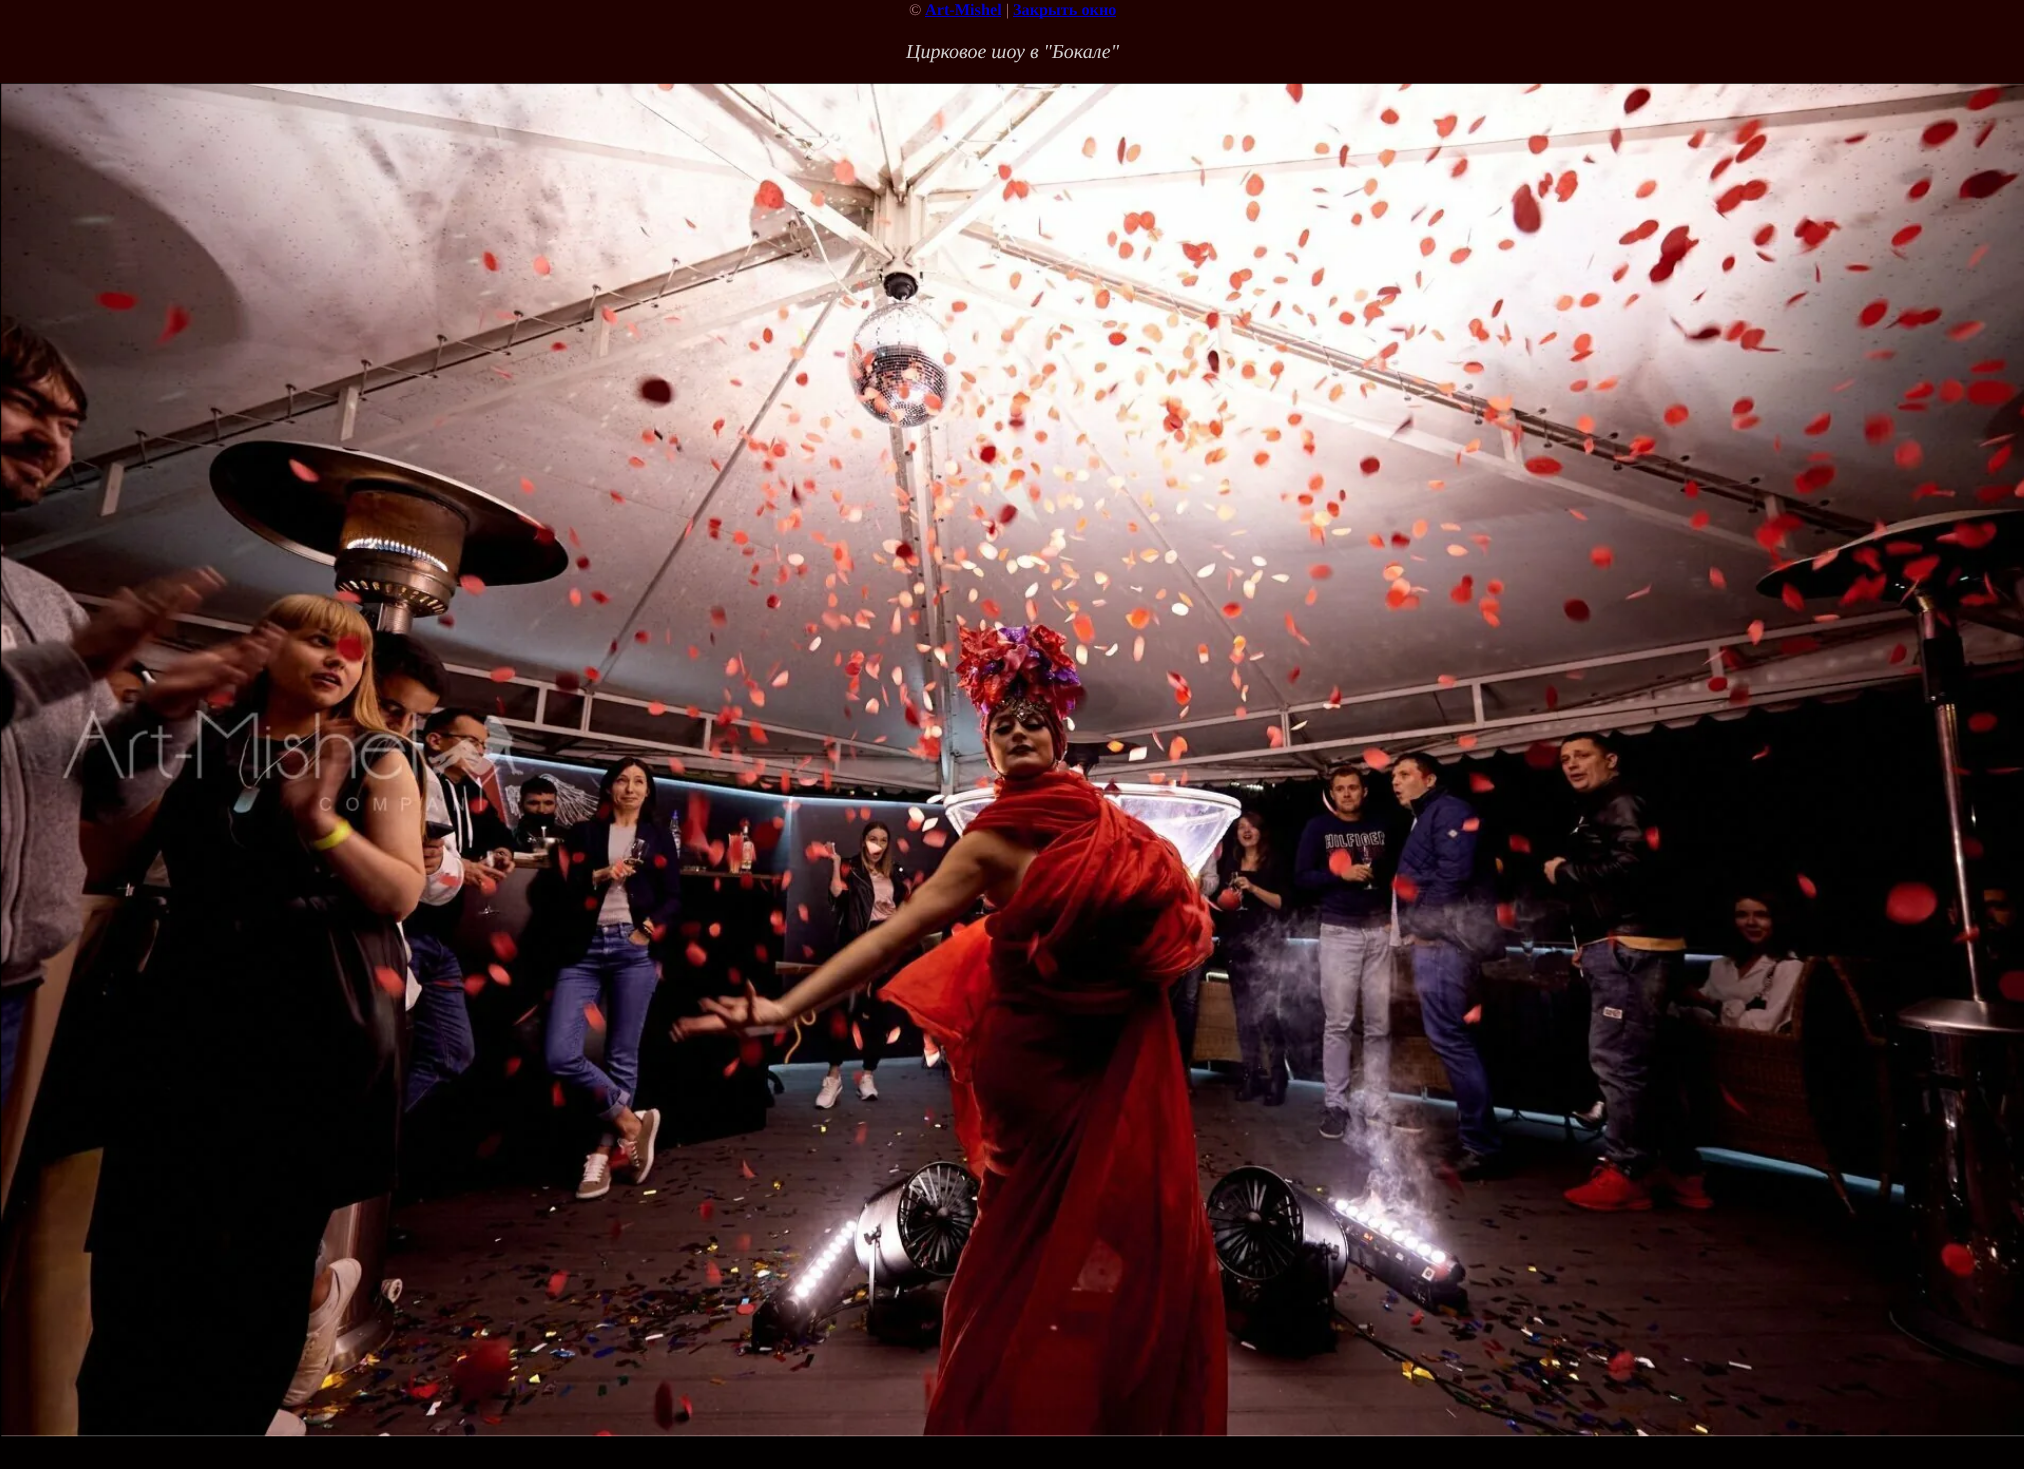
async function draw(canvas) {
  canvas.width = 2024
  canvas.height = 1469
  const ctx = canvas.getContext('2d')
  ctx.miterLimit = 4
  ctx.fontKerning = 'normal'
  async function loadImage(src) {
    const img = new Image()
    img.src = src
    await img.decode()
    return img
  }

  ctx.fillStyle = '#020000'
  ctx.fillRect(0, 0, 2024, 1469)
  ctx.drawImage(await loadImage('image0.png'), 0, 0, 2024, 880)
  ctx.font = '16.25px Liberation Serif'
  ctx.fillStyle = '#a8787b'
  ctx.fillText('©', 909, 15)
  ctx.font = 'bold 16.25px Liberation Serif'
  ctx.fillStyle = '#00c'
  ctx.fillText('Art-Mishel', 925, 15)
  ctx.fillRect(925, 16, 76, 1)
  ctx.font = '16.25px Liberation Serif'
  ctx.fillStyle = '#a8787b'
  ctx.fillText('|', 1006, 15)
  ctx.fillStyle = '#00c'
  ctx.fillRect(1013, 16, 103, 1)
  ctx.font = 'bold 16.25px Liberation Serif'
  ctx.fillText('Закрыть окно', 1013, 15)
  ctx.font = 'italic 20px Liberation Serif'
  ctx.fillStyle = '#d1cfcf'
  ctx.fillText('Цирковое шоу в "Бокале"', 906, 58)
  ctx.strokeStyle = '#000'
  ctx.strokeRect(0.5, 83.5, 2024, 1354)
  ctx.drawImage(await loadImage('image1.png'), 1, 83, 2023, 1354)
}

draw(document.querySelector('canvas'))
